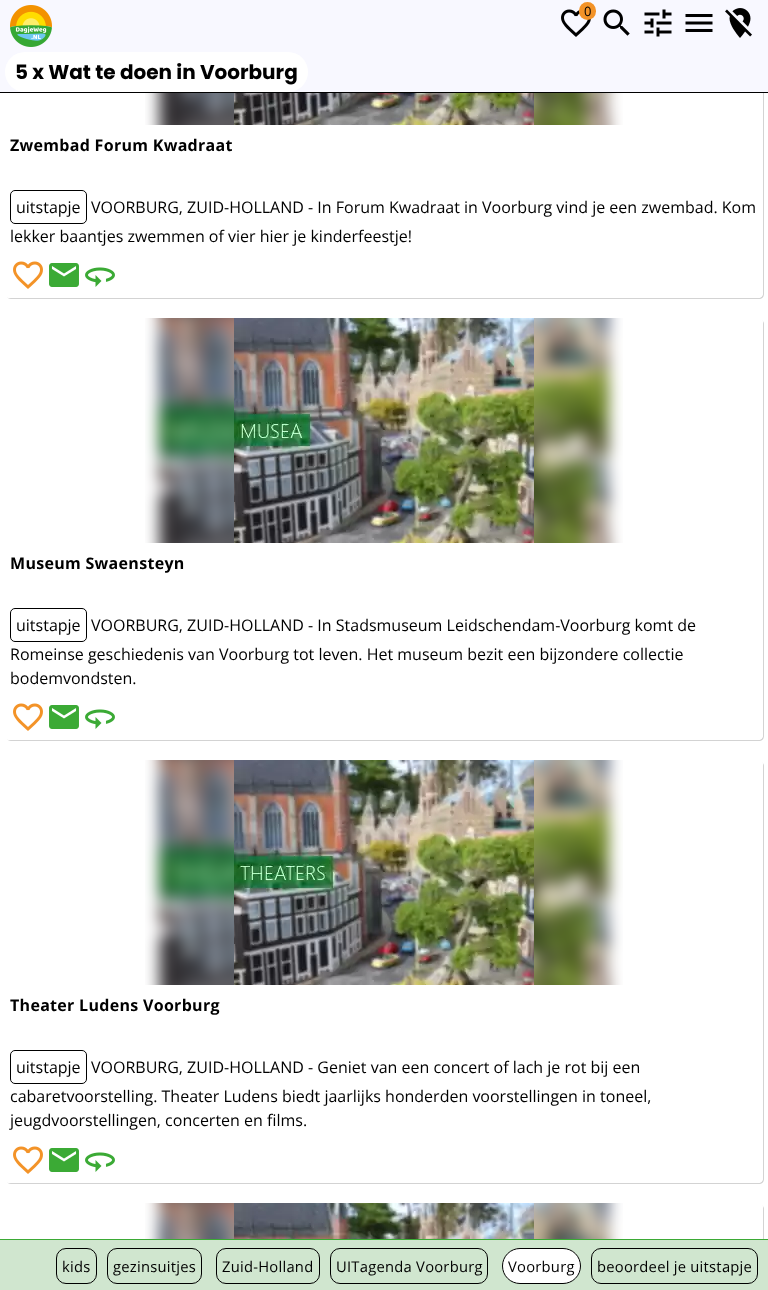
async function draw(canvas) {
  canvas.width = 768
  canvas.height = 1290
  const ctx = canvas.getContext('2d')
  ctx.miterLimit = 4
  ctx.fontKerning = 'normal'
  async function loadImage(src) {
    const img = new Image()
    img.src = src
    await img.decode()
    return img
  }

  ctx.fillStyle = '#fff'
  ctx.fillRect(0, 0, 768, 1290)
  ctx.fillStyle = '#d3d3d3'
  ctx.beginPath()
  ctx.moveTo(7, 297)
  ctx.bezierCurveTo(8, 298, 9, 299, 11, 299)
  ctx.lineTo(759, 299)
  ctx.bezierCurveTo(762, 299, 764, 297, 764, 294)
  ctx.lineTo(764, -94)
  ctx.bezierCurveTo(764, -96, 763, -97, 762, -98)
  ctx.bezierCurveTo(763, -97, 763, -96, 763, -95)
  ctx.lineTo(763, 293)
  ctx.bezierCurveTo(763, 296, 761, 298, 758, 298)
  ctx.lineTo(10, 298)
  ctx.bezierCurveTo(9, 298, 8, 298, 7, 297)
  ctx.closePath()
  ctx.fill()
  ctx.fillStyle = '#fff'
  ctx.beginPath()
  ctx.roundRect(5, -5, 758, 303, 5)
  ctx.fill()
  ctx.fillStyle = '#f8f8ff'
  ctx.fillRect(0, 0, 768, 92)
  ctx.fillStyle = '#000'
  ctx.fillRect(0, 92, 768, 1)
  ctx.drawImage(await loadImage('image0.png'), 10, 5, 42, 42)
  ctx.drawImage(await loadImage('image1.png'), 561, 9, 30, 28)
  ctx.fillStyle = '#f39328'
  ctx.beginPath()
  ctx.roundRect(579, 2, 17, 18, 8.5)
  ctx.fill()
  ctx.font = '13px Open Sans'
  ctx.fillStyle = '#000'
  ctx.fillText('0', 584, 16)
  ctx.drawImage(await loadImage('image2.png'), 603, 9, 27, 27)
  ctx.drawImage(await loadImage('image3.png'), 644, 9, 28, 28)
  ctx.drawImage(await loadImage('image4.png'), 685, 14, 28, 18)
  ctx.drawImage(await loadImage('image5.png'), 725, 8, 27, 30)
  ctx.fillStyle = '#d3d3d3'
  ctx.beginPath()
  ctx.moveTo(7, 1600)
  ctx.bezierCurveTo(8, 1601, 9, 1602, 11, 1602)
  ctx.lineTo(759, 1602)
  ctx.bezierCurveTo(762, 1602, 764, 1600, 764, 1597)
  ctx.lineTo(764, 1209)
  ctx.bezierCurveTo(764, 1207, 763, 1206, 762, 1205)
  ctx.bezierCurveTo(763, 1206, 763, 1207, 763, 1208)
  ctx.lineTo(763, 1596)
  ctx.bezierCurveTo(763, 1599, 761, 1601, 758, 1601)
  ctx.lineTo(10, 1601)
  ctx.bezierCurveTo(9, 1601, 8, 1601, 7, 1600)
  ctx.closePath()
  ctx.fill()
  ctx.fillStyle = '#fff'
  ctx.beginPath()
  ctx.roundRect(5, 1203, 758, 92, 5)
  ctx.fill()
  ctx.fillStyle = '#d0e6cf'
  ctx.fillRect(0, 1240, 768, 50)
  ctx.fillStyle = '#3baa35'
  ctx.fillRect(0, 1239, 768, 1)
  ctx.beginPath()
  ctx.roundRect(56.5, 1248.5, 40, 35, 9.5)
  ctx.strokeStyle = '#000'
  ctx.stroke()
  ctx.letterSpacing = '0.25px'
  ctx.font = '14.75px Open Sans'
  ctx.fillStyle = '#000'
  ctx.fillText('kids', 62, 1272)
  ctx.beginPath()
  ctx.roundRect(107.5, 1248.5, 94, 35, 9.5)
  ctx.stroke()
  ctx.fillText('gezinsuitjes', 113, 1272)
  ctx.beginPath()
  ctx.roundRect(216.5, 1248.5, 103, 35, 9.5)
  ctx.stroke()
  ctx.fillText('Zuid-Holland', 222, 1272)
  ctx.beginPath()
  ctx.roundRect(330.5, 1248.5, 157, 35, 9.5)
  ctx.stroke()
  ctx.fillText('UITagenda Voorburg', 336, 1272)
  ctx.fillStyle = '#fff'
  ctx.beginPath()
  ctx.roundRect(502.5, 1248.5, 78, 35, 17.5)
  ctx.fill()
  ctx.stroke()
  ctx.fillStyle = '#000'
  ctx.fillText('Voorburg', 508, 1272)
  ctx.beginPath()
  ctx.roundRect(591.5, 1248.5, 166, 35, 9.5)
  ctx.stroke()
  ctx.fillText('beoordeel je uitstapje', 597, 1272)
  ctx.fillStyle = '#fff'
  ctx.beginPath()
  ctx.roundRect(5, 52, 303, 40, 20)
  ctx.fill()
  ctx.letterSpacing = '0px'
  ctx.font = 'bold 20px Poppins'
  ctx.fillStyle = '#000'
  ctx.fillText('5 x Wat te doen in Voorburg', 15, 79)
  ctx.drawImage(await loadImage('image6.png'), 145, 93, 478, 32)
  ctx.drawImage(await loadImage('image7.png'), 234, 93, 300, 32)
  ctx.fillStyle = '#ffffffb3'
  ctx.beginPath()
  ctx.roundRect(5, 125, 758, 173, [0, 0, 5, 5])
  ctx.fill()
  ctx.letterSpacing = '0.3px'
  ctx.font = 'bold 16px Open Sans'
  ctx.fillStyle = '#000'
  ctx.fillText('Zwembad Forum Kwadraat', 10, 151)
  ctx.beginPath()
  ctx.roundRect(10.5, 190.5, 76, 33, 4.5)
  ctx.stroke()
  ctx.letterSpacing = '0px'
  ctx.font = '16px Open Sans'
  ctx.fillText('uitstapje', 16, 213)
  ctx.fillText('VOORBURG, ZUID-HOLLAND - In Forum Kwadraat in Voorburg vind je een zwembad. Kom', 91, 213)
  ctx.fillText('lekker baantjes zwemmen of vier hier je kinderfeestje!', 10, 242)
  ctx.drawImage(await loadImage('image8.png'), 13, 261, 30, 28)
  ctx.drawImage(await loadImage('image9.png'), 49, 263, 30, 24)
  ctx.drawImage(await loadImage('image10.png'), 85, 267, 30, 20)
  ctx.fillStyle = '#d3d3d3'
  ctx.beginPath()
  ctx.moveTo(7, 739)
  ctx.bezierCurveTo(8, 740, 9, 741, 11, 741)
  ctx.lineTo(759, 741)
  ctx.bezierCurveTo(762, 741, 764, 739, 764, 736)
  ctx.lineTo(764, 324)
  ctx.bezierCurveTo(764, 322, 763, 321, 762, 320)
  ctx.bezierCurveTo(763, 321, 763, 322, 763, 323)
  ctx.lineTo(763, 735)
  ctx.bezierCurveTo(763, 738, 761, 740, 758, 740)
  ctx.lineTo(10, 740)
  ctx.bezierCurveTo(9, 740, 8, 740, 7, 739)
  ctx.closePath()
  ctx.fill()
  ctx.fillStyle = '#fff'
  ctx.beginPath()
  ctx.roundRect(5, 318, 758, 422, 5)
  ctx.fill()
  ctx.drawImage(await loadImage('image11.png'), 145, 318, 478, 225)
  ctx.drawImage(await loadImage('image12.png'), 234, 318, 300, 225)
  ctx.fillStyle = '#ffffffb3'
  ctx.beginPath()
  ctx.roundRect(5, 543, 758, 197, [0, 0, 5, 5])
  ctx.fill()
  ctx.letterSpacing = '0.3px'
  ctx.font = 'bold 16px Open Sans'
  ctx.fillStyle = '#000'
  ctx.fillText('Museum Swaensteyn', 10, 569)
  ctx.beginPath()
  ctx.roundRect(10.5, 608.5, 76, 33, 4.5)
  ctx.stroke()
  ctx.letterSpacing = '0px'
  ctx.font = '16px Open Sans'
  ctx.fillText('uitstapje', 16, 631)
  ctx.fillText('VOORBURG, ZUID-HOLLAND - In Stadsmuseum Leidschendam-Voorburg komt de', 91, 631)
  ctx.fillText('Romeinse geschiedenis van Voorburg tot leven. Het museum bezit een bijzondere collectie', 10, 660)
  ctx.fillText('bodemvondsten.', 10, 684)
  ctx.drawImage(await loadImage('image8.png'), 13, 703, 30, 28)
  ctx.drawImage(await loadImage('image9.png'), 49, 705, 30, 24)
  ctx.drawImage(await loadImage('image10.png'), 85, 709, 30, 20)
  ctx.fillStyle = '#d3d3d3'
  ctx.beginPath()
  ctx.moveTo(7, 1182)
  ctx.bezierCurveTo(8, 1183, 9, 1184, 11, 1184)
  ctx.lineTo(759, 1184)
  ctx.bezierCurveTo(762, 1184, 764, 1182, 764, 1179)
  ctx.lineTo(764, 766)
  ctx.bezierCurveTo(764, 764, 763, 763, 762, 762)
  ctx.bezierCurveTo(763, 763, 763, 764, 763, 765)
  ctx.lineTo(763, 1178)
  ctx.bezierCurveTo(763, 1181, 761, 1183, 758, 1183)
  ctx.lineTo(10, 1183)
  ctx.bezierCurveTo(9, 1183, 8, 1183, 7, 1182)
  ctx.closePath()
  ctx.fill()
  ctx.fillStyle = '#fff'
  ctx.beginPath()
  ctx.roundRect(5, 760, 758, 423, 5)
  ctx.fill()
  ctx.drawImage(await loadImage('image13.png'), 145, 760, 478, 225)
  ctx.drawImage(await loadImage('image14.png'), 234, 760, 300, 225)
  ctx.fillStyle = '#ffffffb3'
  ctx.beginPath()
  ctx.roundRect(5, 985, 758, 198, [0, 0, 5, 5])
  ctx.fill()
  ctx.letterSpacing = '0.3px'
  ctx.font = 'bold 16px Open Sans'
  ctx.fillStyle = '#000'
  ctx.fillText('Theater Ludens Voorburg', 10, 1011)
  ctx.beginPath()
  ctx.roundRect(10.5, 1050.5, 76, 33, 4.5)
  ctx.stroke()
  ctx.letterSpacing = '0px'
  ctx.font = '16px Open Sans'
  ctx.fillText('uitstapje', 16, 1073)
  ctx.fillText('VOORBURG, ZUID-HOLLAND - Geniet van een concert of lach je rot bij een', 91, 1073)
  ctx.fillText('cabaretvoorstelling. Theater Ludens biedt jaarlijks honderden voorstellingen in toneel,', 10, 1102)
  ctx.fillText('jeugdvoorstellingen, concerten en films.', 10, 1126)
  ctx.drawImage(await loadImage('image8.png'), 13, 1146, 30, 28)
  ctx.drawImage(await loadImage('image9.png'), 49, 1148, 30, 24)
  ctx.drawImage(await loadImage('image10.png'), 85, 1152, 30, 20)
  ctx.drawImage(await loadImage('image15.png'), 145, 1203, 478, 36)
  ctx.drawImage(await loadImage('image16.png'), 234, 1203, 300, 36)
}

draw(document.querySelector('canvas'))
